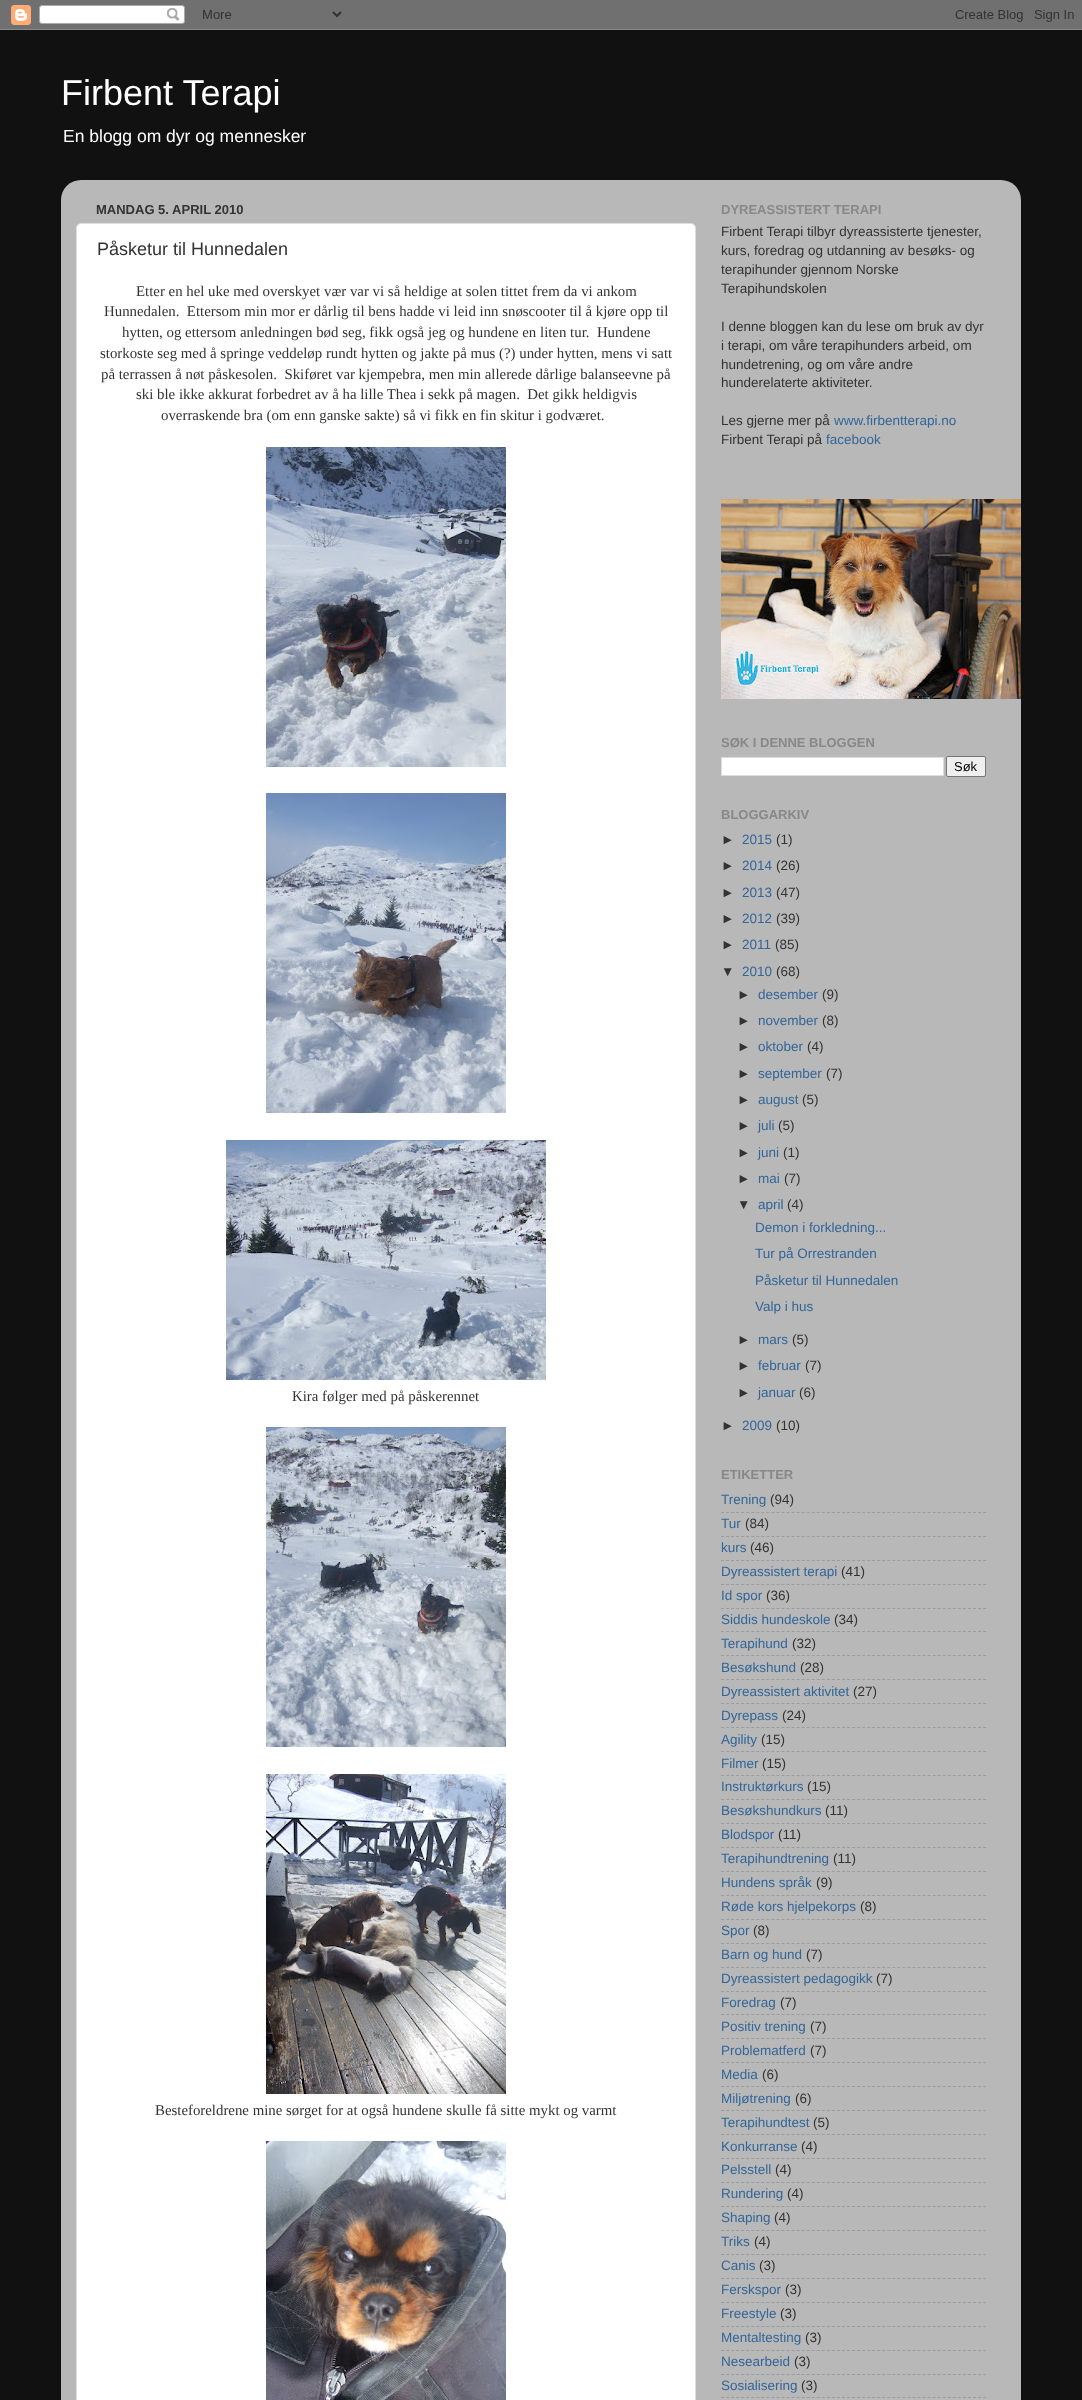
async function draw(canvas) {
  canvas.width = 1082
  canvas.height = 2400
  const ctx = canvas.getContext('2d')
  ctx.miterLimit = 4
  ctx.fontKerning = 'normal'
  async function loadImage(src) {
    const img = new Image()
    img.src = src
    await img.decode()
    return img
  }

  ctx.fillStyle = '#111'
  ctx.fillRect(0, 0, 1082, 2400)
  ctx.drawImage(await loadImage('image0.png'), 0, 0, 1082, 30)
  ctx.font = '36px Liberation Sans'
  ctx.fillStyle = '#fff'
  ctx.fillText('Firbent Terapi', 61, 105)
  ctx.font = '17.5px Liberation Sans'
  ctx.fillText('En blogg om dyr og mennesker', 63, 142)
  ctx.drawImage(await loadImage('image1.png'), 61, 180, 960, 2220)
  ctx.font = 'bold 13px Liberation Sans'
  ctx.fillStyle = '#333'
  ctx.fillText('MANDAG 5. APRIL 2010', 96, 214)
  ctx.fillStyle = '#fff'
  ctx.beginPath()
  ctx.roundRect(76.5, 223.5, 619, 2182, 4.5)
  ctx.fill()
  ctx.strokeStyle = '#ddd'
  ctx.stroke()
  ctx.font = '18px Liberation Sans'
  ctx.fillStyle = '#333'
  ctx.fillText('Påsketur til Hunnedalen', 97, 255)
  ctx.font = '14.85px Liberation Serif'
  ctx.fillText('Etter en hel uke med overskyet vær var vi så heldige at solen tittet frem da vi ankom', 136, 296)
  ctx.fillText('Hunnedalen.  Ettersom min mor er dårlig til bens hadde vi leid inn snøscooter til å kjøre opp til', 104, 316)
  ctx.fillText('hytten, og ettersom anledningen bød seg, fikk også jeg og hundene en liten tur.  Hundene', 122, 337)
  ctx.fillText('storkoste seg med å springe veddeløp rundt hytten og jakte på mus (?) under hytten, mens vi satt', 100, 358)
  ctx.fillText('på terrassen å nøt påskesolen.  Skiføret var kjempebra, men min allerede dårlige balanseevne på', 101, 379)
  ctx.fillText('ski ble ikke akkurat forbedret av å ha lille Thea i sekk på magen.  Det gikk heldigvis', 136, 399)
  ctx.fillText('overraskende bra (om enn ganske sakte) så vi fikk en fin skitur i godværet.', 161, 420)
  ctx.drawImage(await loadImage('image2.png'), 266, 447, 240, 320)
  ctx.drawImage(await loadImage('image3.png'), 266, 793, 240, 320)
  ctx.drawImage(await loadImage('image4.png'), 226, 1140, 320, 240)
  ctx.fillText('Kira følger med på påskerennet', 292, 1401)
  ctx.drawImage(await loadImage('image5.png'), 266, 1427, 240, 320)
  ctx.drawImage(await loadImage('image6.png'), 266, 1774, 240, 320)
  ctx.fillText('Besteforeldrene mine sørget for at også hundene skulle få sitte mykt og varmt', 155, 2115)
  ctx.drawImage(await loadImage('image7.png'), 266, 2141, 240, 259)
  ctx.font = 'bold 13px Liberation Sans'
  ctx.fillStyle = '#888'
  ctx.fillText('DYREASSISTERT TERAPI', 721, 214)
  ctx.font = '13.5px Liberation Sans'
  ctx.fillStyle = '#333'
  ctx.fillText('Firbent Terapi tilbyr dyreassisterte tjenester,', 721, 236)
  ctx.fillText('kurs, foredrag og utdanning av besøks- og', 721, 255)
  ctx.fillText('terapihunder gjennom Norske', 721, 274)
  ctx.fillText('Terapihundskolen', 721, 293)
  ctx.fillText('I denne bloggen kan du lese om bruk av dyr', 721, 331)
  ctx.fillText('i terapi, om våre terapihunders arbeid, om', 721, 350)
  ctx.fillText('hundetrening, og om våre andre', 721, 369)
  ctx.fillText('hunderelaterte aktiviteter.', 721, 387)
  ctx.fillText('Les gjerne mer på', 721, 425)
  ctx.fillStyle = '#369'
  ctx.fillText('www.firbentterapi.no', 834, 425)
  ctx.fillStyle = '#333'
  ctx.fillText('Firbent Terapi på', 721, 444)
  ctx.fillStyle = '#369'
  ctx.fillText('facebook', 826, 444)
  ctx.drawImage(await loadImage('image8.png'), 721, 499, 300, 200)
  ctx.font = 'bold 13px Liberation Sans'
  ctx.fillStyle = '#888'
  ctx.fillText('SØK I DENNE BLOGGEN', 721, 747)
  ctx.fillStyle = '#fff'
  ctx.beginPath()
  ctx.rect(721.5, 757.5, 222, 18)
  ctx.fill()
  ctx.stroke()
  ctx.fillStyle = '#efefef'
  ctx.beginPath()
  ctx.roundRect(946.5, 756.5, 39, 20, 1.5)
  ctx.fill()
  ctx.strokeStyle = '#767676'
  ctx.stroke()
  ctx.font = '13px Liberation Sans'
  ctx.fillStyle = '#000'
  ctx.fillText('Søk', 954, 771)
  ctx.font = 'bold 13px Liberation Sans'
  ctx.fillStyle = '#888'
  ctx.fillText('BLOGGARKIV', 721, 819)
  ctx.font = '13.5px Liberation Sans'
  ctx.fillStyle = '#333'
  ctx.fillText('►', 721, 844)
  ctx.fillStyle = '#369'
  ctx.fillText('2015', 742, 844)
  ctx.fillStyle = '#333'
  ctx.fillText('(1)', 776, 844)
  ctx.fillText('►', 721, 870)
  ctx.fillStyle = '#369'
  ctx.fillText('2014', 742, 870)
  ctx.fillStyle = '#333'
  ctx.fillText('(26)', 776, 870)
  ctx.fillText('►', 721, 897)
  ctx.fillStyle = '#369'
  ctx.fillText('2013', 742, 897)
  ctx.fillStyle = '#333'
  ctx.fillText('(47)', 776, 897)
  ctx.fillText('►', 721, 923)
  ctx.fillStyle = '#369'
  ctx.fillText('2012', 742, 923)
  ctx.fillStyle = '#333'
  ctx.fillText('(39)', 776, 923)
  ctx.fillText('►', 721, 949)
  ctx.fillStyle = '#369'
  ctx.fillText('2011', 742, 949)
  ctx.fillStyle = '#333'
  ctx.fillText('(85)', 775, 949)
  ctx.fillText('▼', 721, 976)
  ctx.fillStyle = '#369'
  ctx.fillText('2010', 742, 976)
  ctx.fillStyle = '#333'
  ctx.fillText('(68)', 776, 976)
  ctx.fillText('►', 737, 999)
  ctx.fillStyle = '#369'
  ctx.fillText('desember', 758, 999)
  ctx.fillStyle = '#333'
  ctx.fillText('(9)', 822, 999)
  ctx.fillText('►', 737, 1025)
  ctx.fillStyle = '#369'
  ctx.fillText('november', 758, 1025)
  ctx.fillStyle = '#333'
  ctx.fillText('(8)', 822, 1025)
  ctx.fillText('►', 737, 1051)
  ctx.fillStyle = '#369'
  ctx.fillText('oktober', 758, 1051)
  ctx.fillStyle = '#333'
  ctx.fillText('(4)', 807, 1051)
  ctx.fillText('►', 737, 1078)
  ctx.fillStyle = '#369'
  ctx.fillText('september', 758, 1078)
  ctx.fillStyle = '#333'
  ctx.fillText('(7)', 826, 1078)
  ctx.fillText('►', 737, 1104)
  ctx.fillStyle = '#369'
  ctx.fillText('august', 758, 1104)
  ctx.fillStyle = '#333'
  ctx.fillText('(5)', 802, 1104)
  ctx.fillText('►', 737, 1130)
  ctx.fillStyle = '#369'
  ctx.fillText('juli', 758, 1130)
  ctx.fillStyle = '#333'
  ctx.fillText('(5)', 778, 1130)
  ctx.fillText('►', 737, 1157)
  ctx.fillStyle = '#369'
  ctx.fillText('juni', 758, 1157)
  ctx.fillStyle = '#333'
  ctx.fillText('(1)', 783, 1157)
  ctx.fillText('►', 737, 1183)
  ctx.fillStyle = '#369'
  ctx.fillText('mai', 758, 1183)
  ctx.fillStyle = '#333'
  ctx.fillText('(7)', 784, 1183)
  ctx.fillText('▼', 737, 1209)
  ctx.fillStyle = '#369'
  ctx.fillText('april', 758, 1209)
  ctx.fillStyle = '#333'
  ctx.fillText('(4)', 787, 1209)
  ctx.fillStyle = '#369'
  ctx.fillText('Demon i forkledning...', 755, 1232)
  ctx.fillText('Tur på Orrestranden', 755, 1258)
  ctx.fillText('Påsketur til Hunnedalen', 755, 1285)
  ctx.fillText('Valp i hus', 755, 1311)
  ctx.fillStyle = '#333'
  ctx.fillText('►', 737, 1344)
  ctx.fillStyle = '#369'
  ctx.fillText('mars', 758, 1344)
  ctx.fillStyle = '#333'
  ctx.fillText('(5)', 792, 1344)
  ctx.fillText('►', 737, 1370)
  ctx.fillStyle = '#369'
  ctx.fillText('februar', 758, 1370)
  ctx.fillStyle = '#333'
  ctx.fillText('(7)', 805, 1370)
  ctx.fillText('►', 737, 1397)
  ctx.fillStyle = '#369'
  ctx.fillText('januar', 758, 1397)
  ctx.fillStyle = '#333'
  ctx.fillText('(6)', 799, 1397)
  ctx.fillText('►', 721, 1430)
  ctx.fillStyle = '#369'
  ctx.fillText('2009', 742, 1430)
  ctx.fillStyle = '#333'
  ctx.fillText('(10)', 776, 1430)
  ctx.font = 'bold 13px Liberation Sans'
  ctx.fillStyle = '#888'
  ctx.fillText('ETIKETTER', 721, 1479)
  ctx.font = '13.5px Liberation Sans'
  ctx.fillStyle = '#369'
  ctx.fillText('Trening', 721, 1504)
  ctx.fillStyle = '#333'
  ctx.fillText('(94)', 770, 1504)
  ctx.beginPath()
  ctx.moveTo(721, 1512.5)
  ctx.lineTo(986, 1512.5)
  ctx.strokeStyle = '#9c9c9c'
  ctx.setLineDash([3, 2.04])
  ctx.stroke()
  ctx.fillStyle = '#369'
  ctx.fillText('Tur', 721, 1528)
  ctx.fillStyle = '#333'
  ctx.fillText('(84)', 745, 1528)
  ctx.beginPath()
  ctx.moveTo(721, 1536.5)
  ctx.lineTo(986, 1536.5)
  ctx.stroke()
  ctx.fillStyle = '#369'
  ctx.fillText('kurs', 721, 1552)
  ctx.fillStyle = '#333'
  ctx.fillText('(46)', 750, 1552)
  ctx.beginPath()
  ctx.moveTo(721, 1560.5)
  ctx.lineTo(986, 1560.5)
  ctx.stroke()
  ctx.fillStyle = '#369'
  ctx.fillText('Dyreassistert terapi', 721, 1576)
  ctx.fillStyle = '#333'
  ctx.fillText('(41)', 841, 1576)
  ctx.beginPath()
  ctx.moveTo(721, 1584.5)
  ctx.lineTo(986, 1584.5)
  ctx.stroke()
  ctx.fillStyle = '#369'
  ctx.fillText('Id spor', 721, 1600)
  ctx.fillStyle = '#333'
  ctx.fillText('(36)', 766, 1600)
  ctx.beginPath()
  ctx.moveTo(721, 1608.5)
  ctx.lineTo(986, 1608.5)
  ctx.stroke()
  ctx.fillStyle = '#369'
  ctx.fillText('Siddis hundeskole', 721, 1624)
  ctx.fillStyle = '#333'
  ctx.fillText('(34)', 834, 1624)
  ctx.beginPath()
  ctx.moveTo(721, 1631.5)
  ctx.lineTo(986, 1631.5)
  ctx.stroke()
  ctx.fillStyle = '#369'
  ctx.fillText('Terapihund', 721, 1648)
  ctx.fillStyle = '#333'
  ctx.fillText('(32)', 792, 1648)
  ctx.beginPath()
  ctx.moveTo(721, 1655.5)
  ctx.lineTo(986, 1655.5)
  ctx.stroke()
  ctx.fillStyle = '#369'
  ctx.fillText('Besøkshund', 721, 1672)
  ctx.fillStyle = '#333'
  ctx.fillText('(28)', 800, 1672)
  ctx.beginPath()
  ctx.moveTo(721, 1679.5)
  ctx.lineTo(986, 1679.5)
  ctx.stroke()
  ctx.fillStyle = '#369'
  ctx.fillText('Dyreassistert aktivitet', 721, 1696)
  ctx.fillStyle = '#333'
  ctx.fillText('(27)', 853, 1696)
  ctx.beginPath()
  ctx.moveTo(721, 1703.5)
  ctx.lineTo(986, 1703.5)
  ctx.stroke()
  ctx.fillStyle = '#369'
  ctx.fillText('Dyrepass', 721, 1720)
  ctx.fillStyle = '#333'
  ctx.fillText('(24)', 782, 1720)
  ctx.beginPath()
  ctx.moveTo(721, 1727.5)
  ctx.lineTo(986, 1727.5)
  ctx.stroke()
  ctx.fillStyle = '#369'
  ctx.fillText('Agility', 721, 1744)
  ctx.fillStyle = '#333'
  ctx.fillText('(15)', 761, 1744)
  ctx.beginPath()
  ctx.moveTo(721, 1751.5)
  ctx.lineTo(986, 1751.5)
  ctx.stroke()
  ctx.fillStyle = '#369'
  ctx.fillText('Filmer', 721, 1768)
  ctx.fillStyle = '#333'
  ctx.fillText('(15)', 762, 1768)
  ctx.beginPath()
  ctx.moveTo(721, 1775.5)
  ctx.lineTo(986, 1775.5)
  ctx.stroke()
  ctx.fillStyle = '#369'
  ctx.fillText('Instruktørkurs', 721, 1791)
  ctx.fillStyle = '#333'
  ctx.fillText('(15)', 807, 1791)
  ctx.beginPath()
  ctx.moveTo(721, 1799.5)
  ctx.lineTo(986, 1799.5)
  ctx.stroke()
  ctx.fillStyle = '#369'
  ctx.fillText('Besøkshundkurs', 721, 1815)
  ctx.fillStyle = '#333'
  ctx.fillText('(11)', 825, 1815)
  ctx.beginPath()
  ctx.moveTo(721, 1823.5)
  ctx.lineTo(986, 1823.5)
  ctx.stroke()
  ctx.fillStyle = '#369'
  ctx.fillText('Blodspor', 721, 1839)
  ctx.fillStyle = '#333'
  ctx.fillText('(11)', 778, 1839)
  ctx.beginPath()
  ctx.moveTo(721, 1847.5)
  ctx.lineTo(986, 1847.5)
  ctx.stroke()
  ctx.fillStyle = '#369'
  ctx.fillText('Terapihundtrening', 721, 1863)
  ctx.fillStyle = '#333'
  ctx.fillText('(11)', 833, 1863)
  ctx.beginPath()
  ctx.moveTo(721, 1871.5)
  ctx.lineTo(986, 1871.5)
  ctx.stroke()
  ctx.fillStyle = '#369'
  ctx.fillText('Hundens språk', 721, 1887)
  ctx.fillStyle = '#333'
  ctx.fillText('(9)', 816, 1887)
  ctx.beginPath()
  ctx.moveTo(721, 1895.5)
  ctx.lineTo(986, 1895.5)
  ctx.stroke()
  ctx.fillStyle = '#369'
  ctx.fillText('Røde kors hjelpekorps', 721, 1911)
  ctx.fillStyle = '#333'
  ctx.fillText('(8)', 860, 1911)
  ctx.beginPath()
  ctx.moveTo(721, 1919.5)
  ctx.lineTo(986, 1919.5)
  ctx.stroke()
  ctx.fillStyle = '#369'
  ctx.fillText('Spor', 721, 1935)
  ctx.fillStyle = '#333'
  ctx.fillText('(8)', 753, 1935)
  ctx.beginPath()
  ctx.moveTo(721, 1943.5)
  ctx.lineTo(986, 1943.5)
  ctx.stroke()
  ctx.fillStyle = '#369'
  ctx.fillText('Barn og hund', 721, 1959)
  ctx.fillStyle = '#333'
  ctx.fillText('(7)', 806, 1959)
  ctx.beginPath()
  ctx.moveTo(721, 1967.5)
  ctx.lineTo(986, 1967.5)
  ctx.stroke()
  ctx.fillStyle = '#369'
  ctx.fillText('Dyreassistert pedagogikk', 721, 1983)
  ctx.fillStyle = '#333'
  ctx.fillText('(7)', 876, 1983)
  ctx.beginPath()
  ctx.moveTo(721, 1991.5)
  ctx.lineTo(986, 1991.5)
  ctx.stroke()
  ctx.fillStyle = '#369'
  ctx.fillText('Foredrag', 721, 2007)
  ctx.fillStyle = '#333'
  ctx.fillText('(7)', 780, 2007)
  ctx.beginPath()
  ctx.moveTo(721, 2014.5)
  ctx.lineTo(986, 2014.5)
  ctx.stroke()
  ctx.fillStyle = '#369'
  ctx.fillText('Positiv trening', 721, 2031)
  ctx.fillStyle = '#333'
  ctx.fillText('(7)', 810, 2031)
  ctx.beginPath()
  ctx.moveTo(721, 2038.5)
  ctx.lineTo(986, 2038.5)
  ctx.stroke()
  ctx.fillStyle = '#369'
  ctx.fillText('Problematferd', 721, 2055)
  ctx.fillStyle = '#333'
  ctx.fillText('(7)', 810, 2055)
  ctx.beginPath()
  ctx.moveTo(721, 2062.5)
  ctx.lineTo(986, 2062.5)
  ctx.stroke()
  ctx.fillStyle = '#369'
  ctx.fillText('Media', 721, 2079)
  ctx.fillStyle = '#333'
  ctx.fillText('(6)', 762, 2079)
  ctx.beginPath()
  ctx.moveTo(721, 2086.5)
  ctx.lineTo(986, 2086.5)
  ctx.stroke()
  ctx.fillStyle = '#369'
  ctx.fillText('Miljøtrening', 721, 2103)
  ctx.fillStyle = '#333'
  ctx.fillText('(6)', 795, 2103)
  ctx.beginPath()
  ctx.moveTo(721, 2110.5)
  ctx.lineTo(986, 2110.5)
  ctx.stroke()
  ctx.fillStyle = '#369'
  ctx.fillText('Terapihundtest', 721, 2127)
  ctx.fillStyle = '#333'
  ctx.fillText('(5)', 813, 2127)
  ctx.beginPath()
  ctx.moveTo(721, 2134.5)
  ctx.lineTo(986, 2134.5)
  ctx.stroke()
  ctx.fillStyle = '#369'
  ctx.fillText('Konkurranse', 721, 2151)
  ctx.fillStyle = '#333'
  ctx.fillText('(4)', 801, 2151)
  ctx.beginPath()
  ctx.moveTo(721, 2158.5)
  ctx.lineTo(986, 2158.5)
  ctx.stroke()
  ctx.fillStyle = '#369'
  ctx.fillText('Pelsstell', 721, 2174)
  ctx.fillStyle = '#333'
  ctx.fillText('(4)', 775, 2174)
  ctx.beginPath()
  ctx.moveTo(721, 2182.5)
  ctx.lineTo(986, 2182.5)
  ctx.stroke()
  ctx.fillStyle = '#369'
  ctx.fillText('Rundering', 721, 2198)
  ctx.fillStyle = '#333'
  ctx.fillText('(4)', 787, 2198)
  ctx.beginPath()
  ctx.moveTo(721, 2206.5)
  ctx.lineTo(986, 2206.5)
  ctx.stroke()
  ctx.fillStyle = '#369'
  ctx.fillText('Shaping', 721, 2222)
  ctx.fillStyle = '#333'
  ctx.fillText('(4)', 774, 2222)
  ctx.beginPath()
  ctx.moveTo(721, 2230.5)
  ctx.lineTo(986, 2230.5)
  ctx.stroke()
  ctx.fillStyle = '#369'
  ctx.fillText('Triks', 721, 2246)
  ctx.fillStyle = '#333'
  ctx.fillText('(4)', 754, 2246)
  ctx.beginPath()
  ctx.moveTo(721, 2254.5)
  ctx.lineTo(986, 2254.5)
  ctx.stroke()
  ctx.fillStyle = '#369'
  ctx.fillText('Canis', 721, 2270)
  ctx.fillStyle = '#333'
  ctx.fillText('(3)', 759, 2270)
  ctx.beginPath()
  ctx.moveTo(721, 2278.5)
  ctx.lineTo(986, 2278.5)
  ctx.stroke()
  ctx.fillStyle = '#369'
  ctx.fillText('Ferskspor', 721, 2294)
  ctx.fillStyle = '#333'
  ctx.fillText('(3)', 785, 2294)
  ctx.beginPath()
  ctx.moveTo(721, 2302.5)
  ctx.lineTo(986, 2302.5)
  ctx.stroke()
  ctx.fillStyle = '#369'
  ctx.fillText('Freestyle', 721, 2318)
  ctx.fillStyle = '#333'
  ctx.fillText('(3)', 780, 2318)
  ctx.beginPath()
  ctx.moveTo(721, 2326.5)
  ctx.lineTo(986, 2326.5)
  ctx.stroke()
  ctx.fillStyle = '#369'
  ctx.fillText('Mentaltesting', 721, 2342)
  ctx.fillStyle = '#333'
  ctx.fillText('(3)', 805, 2342)
  ctx.beginPath()
  ctx.moveTo(721, 2350.5)
  ctx.lineTo(986, 2350.5)
  ctx.stroke()
  ctx.fillStyle = '#369'
  ctx.fillText('Nesearbeid', 721, 2366)
  ctx.fillStyle = '#333'
  ctx.fillText('(3)', 794, 2366)
  ctx.beginPath()
  ctx.moveTo(721, 2374.5)
  ctx.lineTo(986, 2374.5)
  ctx.stroke()
  ctx.fillStyle = '#369'
  ctx.fillText('Sosialisering', 721, 2390)
  ctx.fillStyle = '#333'
  ctx.fillText('(3)', 801, 2390)
  ctx.beginPath()
  ctx.moveTo(721, 2397.5)
  ctx.lineTo(986, 2397.5)
  ctx.stroke()
}

draw(document.querySelector('canvas'))
